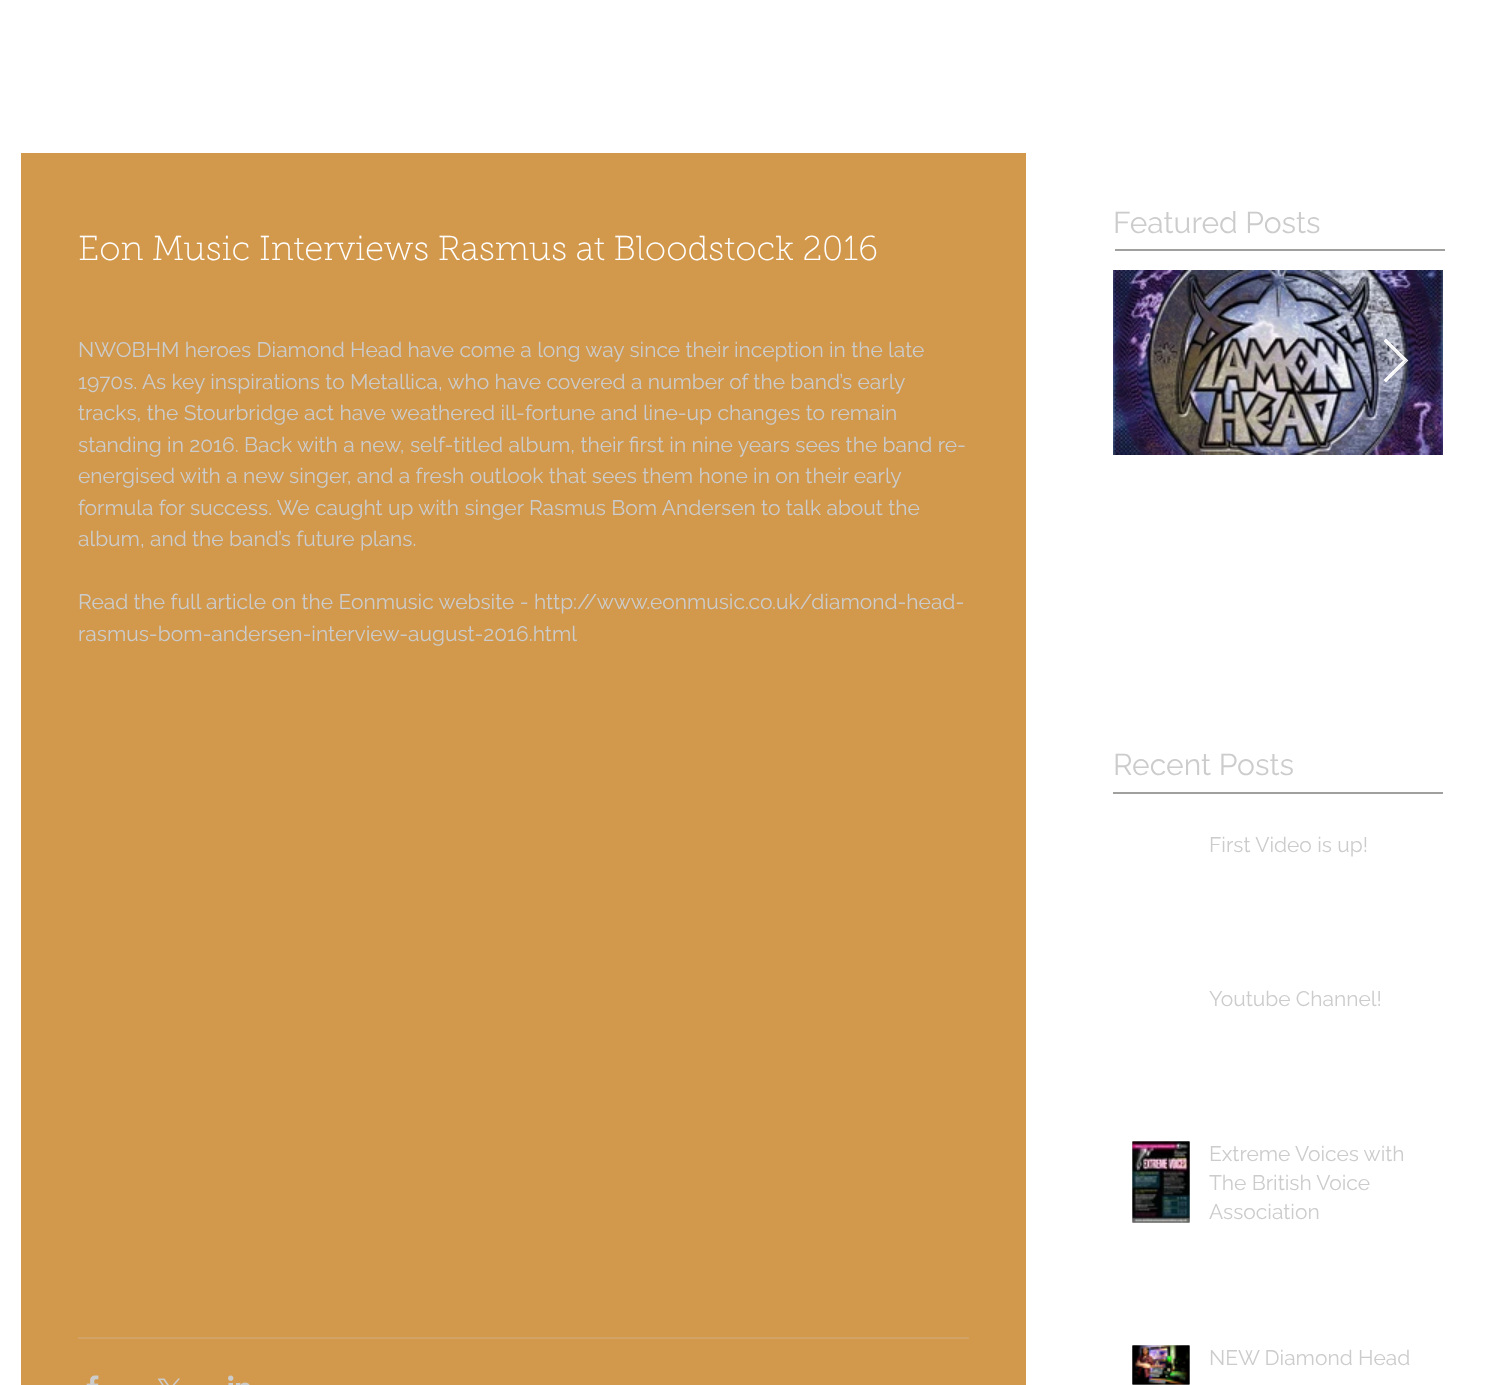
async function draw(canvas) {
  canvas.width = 1509
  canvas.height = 1385
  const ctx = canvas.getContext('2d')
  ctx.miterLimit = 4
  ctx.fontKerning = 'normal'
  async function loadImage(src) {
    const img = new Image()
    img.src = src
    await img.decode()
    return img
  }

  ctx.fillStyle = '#fff'
  ctx.fillRect(0, 0, 1509, 1385)
  ctx.font = '30px Raleway'
  ctx.fillStyle = '#ccc'
  ctx.fillText('Featured Posts', 1113, 233)
  ctx.fillStyle = '#d2994d'
  ctx.fillRect(21, 153, 1005, 1232)
  ctx.font = '100 34.5px "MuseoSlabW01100"'
  ctx.fillStyle = '#fff'
  ctx.fillText('Eon Music Interviews Rasmus at Bloodstock 2016', 78, 260)
  ctx.font = '21px Raleway'
  ctx.fillStyle = '#ccc'
  ctx.fillText('NWOBHM heroes Diamond Head have come a long way since their inception in the late', 78, 357)
  ctx.fillText('1970s. As key inspirations to Metallica, who have covered a number of the band’s early', 78, 389)
  ctx.fillText('tracks, the Stourbridge act have weathered ill-fortune and line-up changes to remain', 78, 420)
  ctx.fillText('standing in 2016. Back with a new, self-titled album, their first in nine years sees the band re-', 78, 452)
  ctx.fillText('energised with a new singer, and a fresh outlook that sees them hone in on their early', 78, 483)
  ctx.fillText('formula for success. We caught up with singer Rasmus Bom Andersen to talk about the', 78, 515)
  ctx.fillText('album, and the band’s future plans.', 78, 546)
  ctx.fillText('Read the full article on the Eonmusic website - http://www.eonmusic.co.uk/diamond-head-', 78, 609)
  ctx.fillText('rasmus-bom-andersen-interview-august-2016.html', 78, 641)
  ctx.fillStyle = '#d1a366'
  ctx.fillRect(78, 1337, 891, 2)
  ctx.drawImage(await loadImage('image0.png'), 86, 1375, 13, 10)
  ctx.drawImage(await loadImage('image1.png'), 157, 1378, 23, 7)
  ctx.drawImage(await loadImage('image2.png'), 228, 1375, 22, 10)
  ctx.fillStyle = '#a0a09f'
  ctx.fillRect(1115, 249, 330, 2)
  ctx.drawImage(await loadImage('image3.png'), 1113, 270, 330, 185)
  ctx.fillStyle = '#ffffffe6'
  ctx.beginPath()
  ctx.moveTo(1384, 341)
  ctx.lineTo(1386, 339)
  ctx.lineTo(1407, 360)
  ctx.lineTo(1386, 382)
  ctx.lineTo(1384, 380)
  ctx.lineTo(1404, 360)
  ctx.closePath()
  ctx.fill()
  ctx.beginPath()
  ctx.moveTo(1384.5, 341)
  ctx.lineTo(1386, 339.5)
  ctx.lineTo(1407.5, 360.5)
  ctx.lineTo(1386, 381.5)
  ctx.lineTo(1384.5, 380)
  ctx.lineTo(1404, 360.5)
  ctx.closePath()
  ctx.strokeStyle = '#ffffffe6'
  ctx.lineWidth = 1.2
  ctx.stroke()
  ctx.font = '30px Raleway'
  ctx.fillStyle = '#ccc'
  ctx.fillText('Recent Posts', 1113, 775)
  ctx.fillStyle = '#a0a09f'
  ctx.fillRect(1113, 792, 330, 2)
  ctx.font = '21px Raleway'
  ctx.fillStyle = '#ccc'
  ctx.fillText('First Video is up!', 1209, 852)
  ctx.fillText('Youtube Channel!', 1209, 1006)
  ctx.drawImage(await loadImage('image4.png'), 1132, 1141, 58, 82)
  ctx.drawImage(await loadImage('image5.png'), 1132, 1141, 58, 82)
  ctx.fillText('Extreme Voices with', 1209, 1161)
  ctx.fillText('The British Voice', 1209, 1190)
  ctx.fillText('Association', 1209, 1219)
  ctx.drawImage(await loadImage('image6.png'), 1132, 1345, 58, 40)
  ctx.drawImage(await loadImage('image7.png'), 1132, 1345, 58, 40)
  ctx.fillText('NEW Diamond Head', 1209, 1365)
}

draw(document.querySelector('canvas'))
